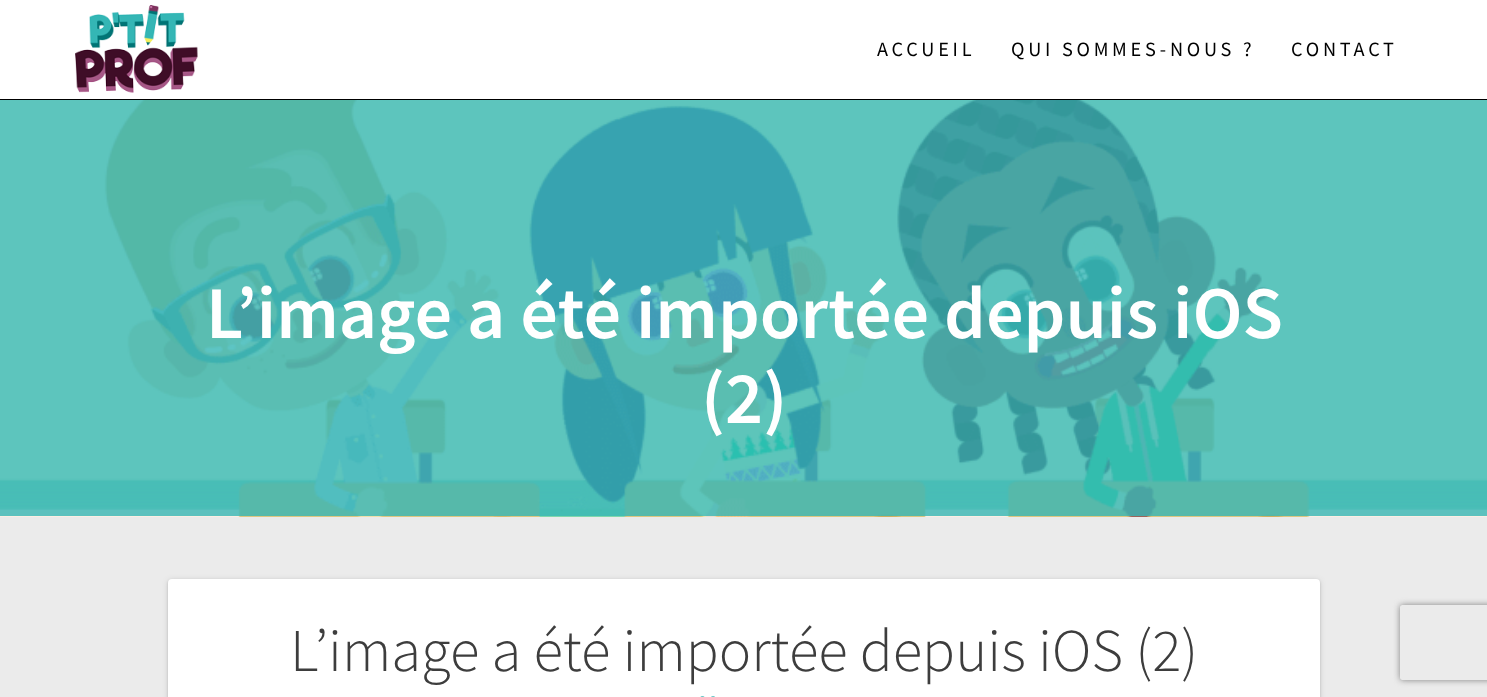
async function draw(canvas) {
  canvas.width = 1487
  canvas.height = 697
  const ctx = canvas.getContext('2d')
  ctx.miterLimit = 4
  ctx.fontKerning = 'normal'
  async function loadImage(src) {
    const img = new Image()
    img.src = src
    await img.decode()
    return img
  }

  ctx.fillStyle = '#fff'
  ctx.fillRect(0, 0, 1487, 697)
  ctx.fillStyle = '#000'
  ctx.fillRect(0, 99, 1487, 1)
  ctx.drawImage(await loadImage('image0.png'), 75, 5, 123, 88)
  ctx.letterSpacing = '3.75px'
  ctx.font = '20.25px Source Sans Pro'
  ctx.fillText('ACCUEIL', 877, 56)
  ctx.fillText('QUI SOMMES-NOUS ?', 1011, 56)
  ctx.fillText('CONTACT', 1291, 56)
  ctx.drawImage(await loadImage('image1.png'), 0, 100, 1487, 417)
  ctx.letterSpacing = '0px'
  ctx.font = '600 74.25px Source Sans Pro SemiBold'
  ctx.fillStyle = '#fff'
  ctx.fillText('L’image a été importée depuis iOS', 206, 338)
  ctx.fillText('(2)', 701, 423)
  ctx.fillStyle = '#ebebeb'
  ctx.fillRect(0, 517, 1487, 180)
  ctx.fillStyle = '#0000001f'
  ctx.filter = 'blur(3px)'
  ctx.beginPath()
  ctx.roundRect(168, 580, 1152, 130, 4)
  ctx.fill()
  ctx.filter = 'none'
  ctx.fillStyle = '#00000024'
  ctx.filter = 'blur(1px)'
  ctx.beginPath()
  ctx.roundRect(168, 580, 1152, 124, 4)
  ctx.fill()
  ctx.filter = 'none'
  ctx.fillStyle = '#fff'
  ctx.beginPath()
  ctx.roundRect(168, 579, 1152, 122, 4)
  ctx.fill()
  ctx.font = '300 60.75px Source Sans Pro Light'
  ctx.fillStyle = '#3d3d3d'
  ctx.fillText('L’image a été importée depuis iOS (2)', 290, 671)
  ctx.drawImage(await loadImage('image2.png'), 700, 696, 15, 1)
  ctx.save()
  ctx.beginPath()
  ctx.moveTo(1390, 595)
  ctx.lineTo(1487, 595)
  ctx.lineTo(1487, 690)
  ctx.lineTo(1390, 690)
  ctx.closePath()
  ctx.moveTo(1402.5, 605)
  ctx.lineTo(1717.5, 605)
  ctx.bezierCurveTo(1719, 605, 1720, 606, 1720, 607.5)
  ctx.lineTo(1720, 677.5)
  ctx.bezierCurveTo(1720, 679, 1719, 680, 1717.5, 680)
  ctx.lineTo(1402.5, 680)
  ctx.bezierCurveTo(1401, 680, 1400, 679, 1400, 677.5)
  ctx.lineTo(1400, 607.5)
  ctx.bezierCurveTo(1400, 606, 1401, 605, 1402.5, 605)
  ctx.closePath()
  ctx.clip('evenodd')
  ctx.fillStyle = '#808080'
  ctx.filter = 'blur(3px)'
  ctx.beginPath()
  ctx.roundRect(1400, 605, 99, 75, 2.5)
  ctx.fill()
  ctx.filter = 'none'
  ctx.restore()
}

draw(document.querySelector('canvas'))
